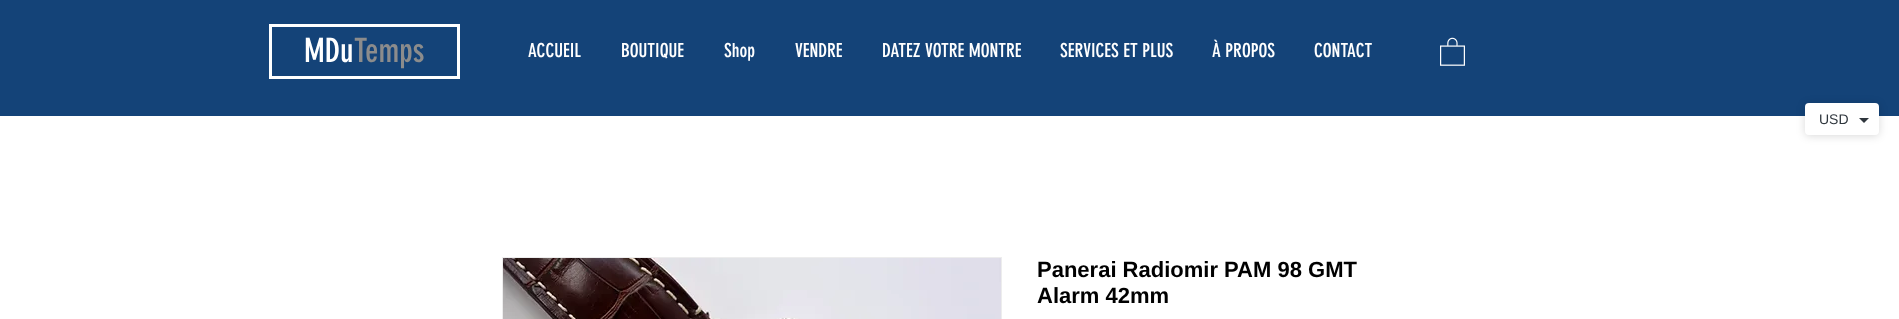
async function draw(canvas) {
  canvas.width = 1899
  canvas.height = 319
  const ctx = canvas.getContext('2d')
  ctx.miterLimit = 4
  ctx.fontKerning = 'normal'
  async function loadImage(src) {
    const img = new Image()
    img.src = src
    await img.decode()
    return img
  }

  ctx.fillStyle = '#fff'
  ctx.fillRect(0, 0, 1899, 319)
  ctx.fillStyle = '#144378'
  ctx.fillRect(0, 0, 1899, 116)
  ctx.strokeStyle = '#fff'
  ctx.lineWidth = 3
  ctx.strokeRect(270.5, 25.5, 188, 52)
  ctx.font = '33px "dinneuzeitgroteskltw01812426"'
  ctx.fillStyle = '#fff'
  ctx.fillText('MDu', 304, 62)
  ctx.fillStyle = '#8c8c8c'
  ctx.fillText('Temps', 354, 62)
  ctx.font = '19px "dinneuzeitgroteskltw01812426"'
  ctx.fillStyle = '#fff'
  ctx.fillText('ACCUEIL', 528, 57)
  ctx.fillText('BOUTIQUE', 621, 57)
  ctx.fillText('Shop', 724, 57)
  ctx.fillText('VENDRE', 795, 57)
  ctx.fillText('DATEZ VOTRE MONTRE', 882, 57)
  ctx.fillText('SERVICES ET PLUS', 1060, 57)
  ctx.fillText('À PROPOS', 1212, 57)
  ctx.fillText('CONTACT', 1314, 57)
  ctx.drawImage(await loadImage('image0.png'), 1440, 37, 25, 29)
  ctx.strokeStyle = '#ededed'
  ctx.lineWidth = 1
  ctx.strokeRect(502.5, 257.5, 499, 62)
  ctx.drawImage(await loadImage('image1.png'), 503, 258, 498, 61)
  ctx.font = 'bold 22px Liberation Sans'
  ctx.fillStyle = '#000'
  ctx.fillText('Panerai Radiomir PAM 98 GMT', 1037, 277)
  ctx.fillText('Alarm 42mm', 1037, 303)
  ctx.fillStyle = '#00000026'
  ctx.filter = 'blur(4px)'
  ctx.beginPath()
  ctx.roundRect(1805, 104, 74, 32, 4)
  ctx.fill()
  ctx.filter = 'none'
  ctx.fillStyle = '#fff'
  ctx.beginPath()
  ctx.roundRect(1805, 103, 74, 32, 4)
  ctx.fill()
  ctx.font = '14px Liberation Sans'
  ctx.fillStyle = '#2f363d'
  ctx.fillText('USD', 1819, 124)
  ctx.beginPath()
  ctx.moveTo(1859, 118)
  ctx.lineTo(1869, 118)
  ctx.lineTo(1864, 123)
  ctx.closePath()
  ctx.fill()
}

draw(document.querySelector('canvas'))
